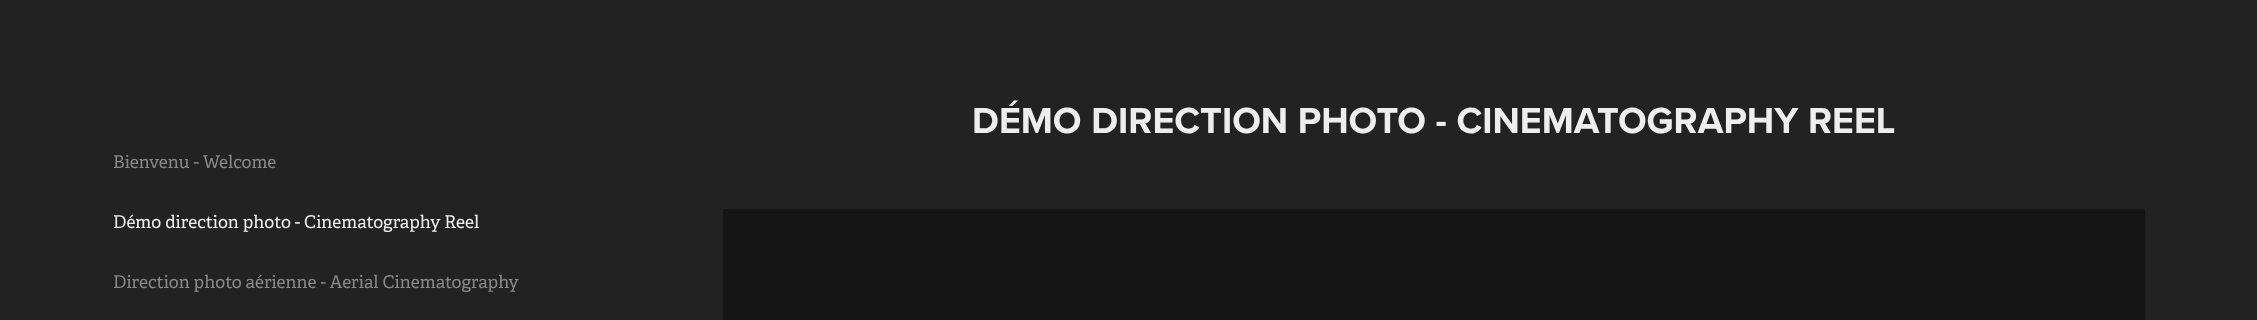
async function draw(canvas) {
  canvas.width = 2257
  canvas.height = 320
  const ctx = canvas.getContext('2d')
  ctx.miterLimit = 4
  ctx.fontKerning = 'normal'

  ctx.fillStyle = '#222'
  ctx.fillRect(0, 0, 2257, 320)
  ctx.font = 'bold 37.5px Proxima Nova'
  ctx.fillStyle = '#eee'
  ctx.fillText('DÉMO DIRECTION PHOTO - CINEMATOGRAPHY REEL', 972, 133)
  ctx.fillStyle = '#141414'
  ctx.fillRect(723, 209, 1422, 111)
  ctx.font = '17.5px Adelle'
  ctx.fillStyle = '#888'
  ctx.fillText('Bienvenu - Welcome', 113, 168)
  ctx.fillStyle = '#eee'
  ctx.fillText('Démo direction photo - Cinematography Reel', 113, 228)
  ctx.fillStyle = '#888'
  ctx.fillText('Direction photo aérienne - Aerial Cinematography', 113, 288)
}

draw(document.querySelector('canvas'))
